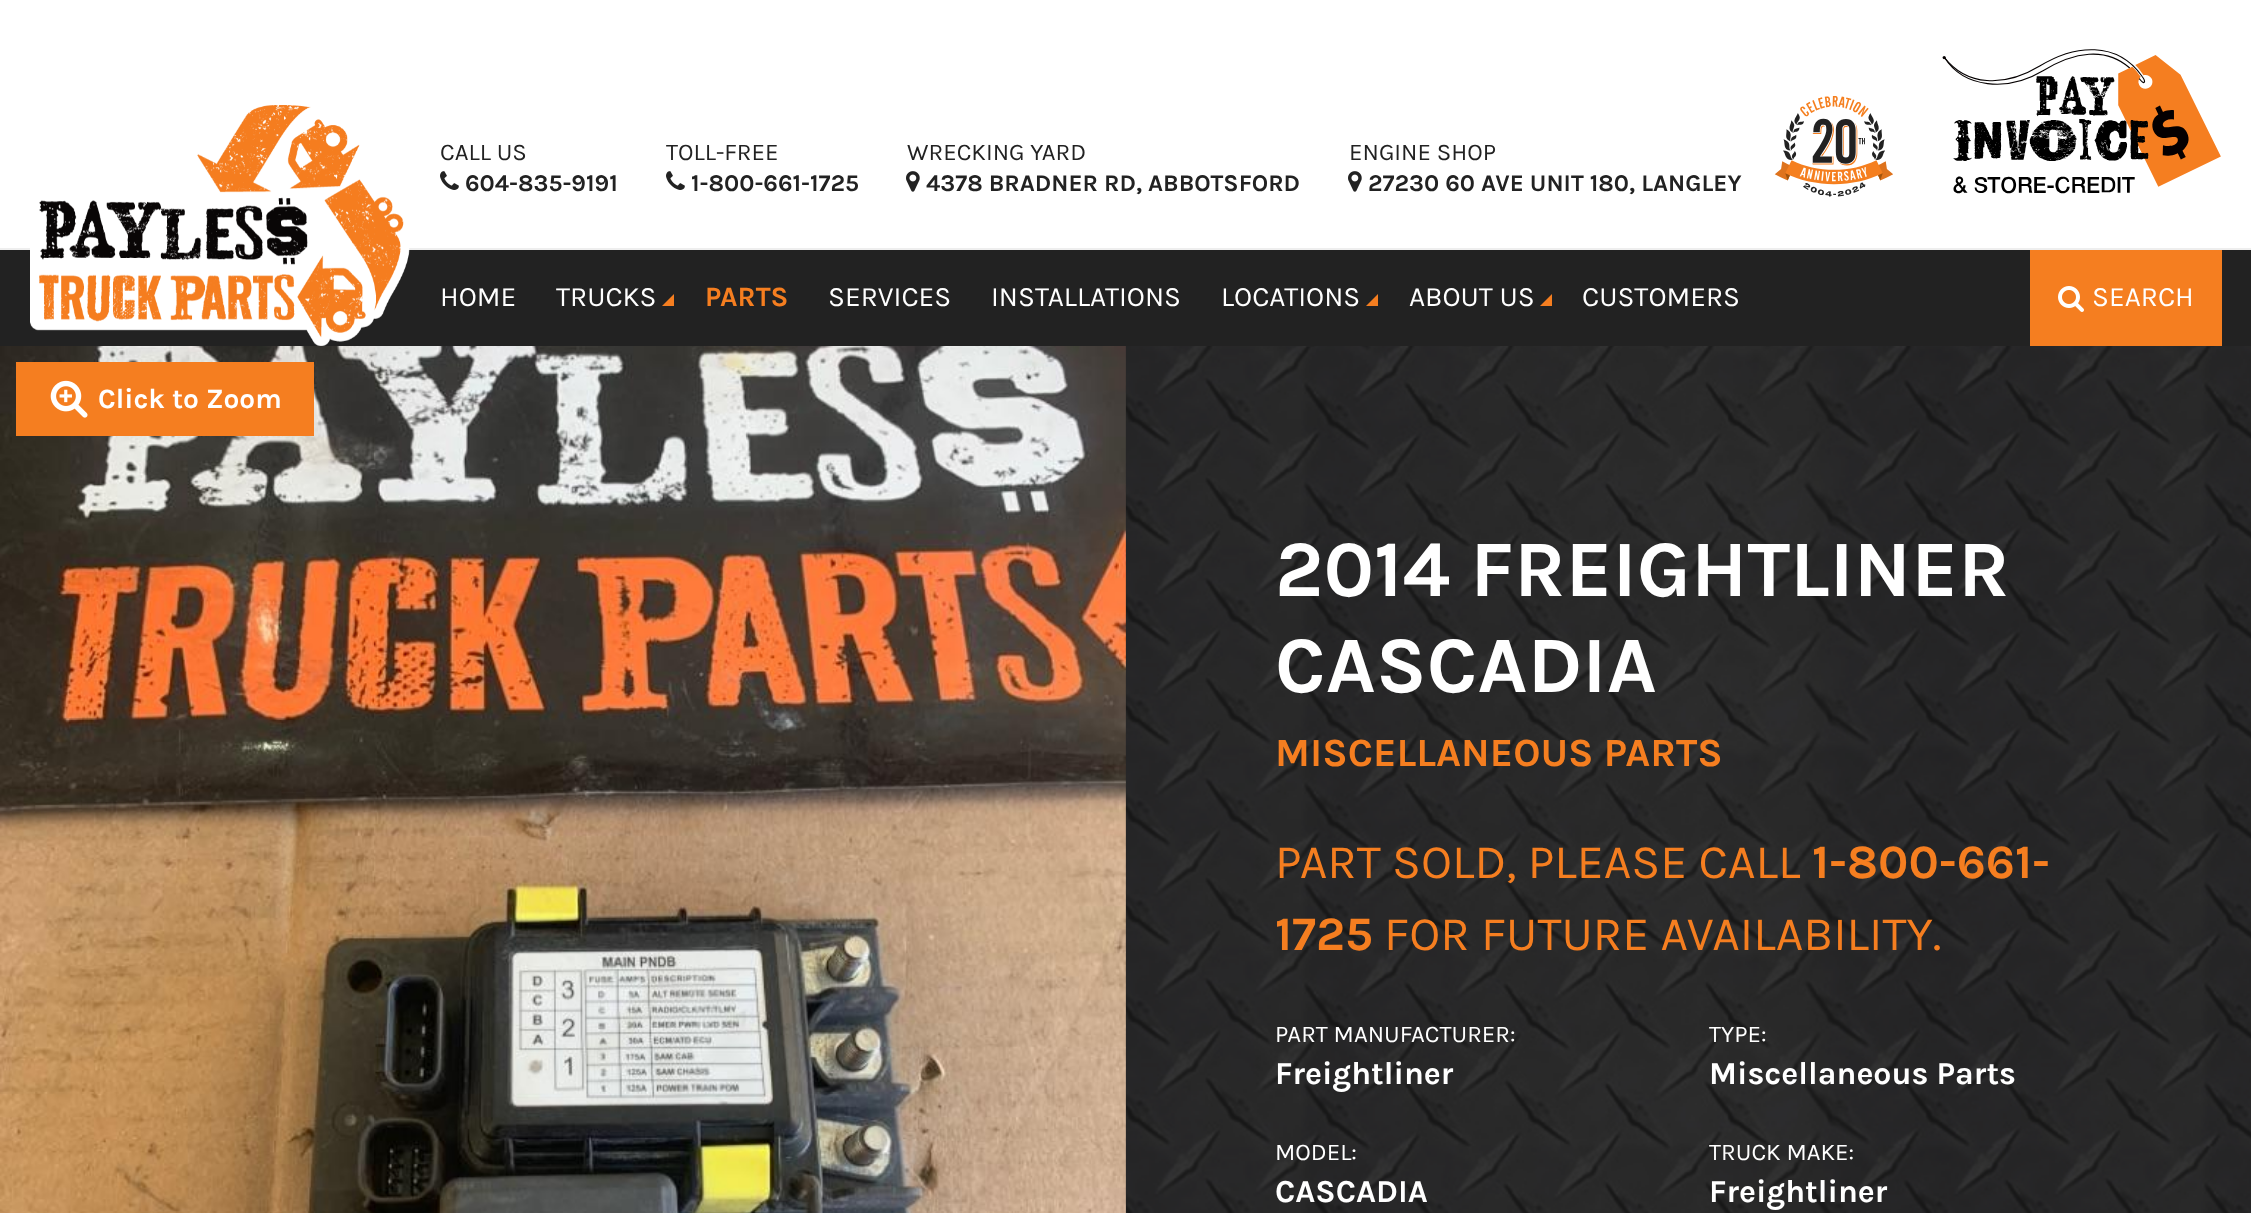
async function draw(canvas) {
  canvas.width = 2251
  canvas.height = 1213
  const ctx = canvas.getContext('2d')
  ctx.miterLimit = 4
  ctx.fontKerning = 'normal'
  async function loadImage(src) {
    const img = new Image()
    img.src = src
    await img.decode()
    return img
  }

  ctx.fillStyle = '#fff'
  ctx.fillRect(0, 0, 2251, 1213)
  ctx.drawImage(await loadImage('image0.png'), 1125, 346, 1, 867)
  ctx.fillStyle = '#222'
  ctx.fillRect(0, 250, 2251, 96)
  ctx.fillStyle = '#eee'
  ctx.fillRect(0, 248, 2251, 2)
  ctx.drawImage(await loadImage('image1.png'), 30, 105, 380, 241)
  ctx.font = '24px Karla'
  ctx.fillStyle = '#222'
  ctx.fillText('CALL US', 440, 160)
  ctx.drawImage(await loadImage('image2.png'), 440, 171, 19, 19)
  ctx.font = 'bold 24px Karla'
  ctx.fillText('604-835-9191', 465, 191)
  ctx.font = '24px Karla'
  ctx.fillText('TOLL-FREE', 666, 160)
  ctx.drawImage(await loadImage('image2.png'), 666, 171, 19, 19)
  ctx.font = 'bold 24px Karla'
  ctx.fillText('1-800-661-1725', 691, 191)
  ctx.font = '24px Karla'
  ctx.fillText('WRECKING YARD', 907, 160)
  ctx.drawImage(await loadImage('image3.png'), 906, 171, 14, 21)
  ctx.font = 'bold 24px Karla'
  ctx.fillText('4378 BRADNER RD, ABBOTSFORD', 926, 191)
  ctx.font = '24px Karla'
  ctx.fillText('ENGINE SHOP', 1349, 160)
  ctx.drawImage(await loadImage('image3.png'), 1348, 171, 14, 21)
  ctx.font = 'bold 24px Karla'
  ctx.fillText('27230 60 AVE UNIT 180, LANGLEY', 1368, 191)
  ctx.drawImage(await loadImage('image4.png'), 1774, 96, 119, 101)
  ctx.drawImage(await loadImage('image5.png'), 1942, 49, 279, 145)
  ctx.font = '28px Karla'
  ctx.fillStyle = '#fff'
  ctx.fillText('HOME', 440, 306)
  ctx.fillText('TRUCKS', 556, 306)
  ctx.fillStyle = '#f57e20'
  ctx.beginPath()
  ctx.moveTo(674, 306)
  ctx.lineTo(662, 306)
  ctx.lineTo(674, 294)
  ctx.closePath()
  ctx.fill()
  ctx.font = 'bold 28px Karla'
  ctx.fillText('PARTS', 705, 306)
  ctx.font = '28px Karla'
  ctx.fillStyle = '#fff'
  ctx.fillText('SERVICES', 828, 306)
  ctx.fillText('INSTALLATIONS', 991, 306)
  ctx.fillText('LOCATIONS', 1221, 306)
  ctx.fillStyle = '#f57e20'
  ctx.beginPath()
  ctx.moveTo(1378, 306)
  ctx.lineTo(1366, 306)
  ctx.lineTo(1378, 294)
  ctx.closePath()
  ctx.fill()
  ctx.fillStyle = '#fff'
  ctx.fillText('ABOUT US', 1409, 306)
  ctx.fillStyle = '#f57e20'
  ctx.beginPath()
  ctx.moveTo(1552, 306)
  ctx.lineTo(1540, 306)
  ctx.lineTo(1552, 294)
  ctx.closePath()
  ctx.fill()
  ctx.fillStyle = '#fff'
  ctx.fillText('CUSTOMERS', 1582, 306)
  ctx.fillStyle = '#f57e20'
  ctx.fillRect(2030, 250, 192, 96)
  ctx.drawImage(await loadImage('image6.png'), 2058, 286, 26, 26)
  ctx.fillStyle = '#fff'
  ctx.fillText('SEARCH', 2092, 306)
  ctx.drawImage(await loadImage('image7.png'), 0, 346, 1126, 867)
  ctx.fillStyle = '#f57e20'
  ctx.fillRect(16, 362, 298, 74)
  ctx.drawImage(await loadImage('image8.png'), 50, 380, 38, 38)
  ctx.font = 'bold 28px Karla'
  ctx.fillStyle = '#fff'
  ctx.fillText('Click to Zoom', 98, 408)
  ctx.drawImage(await loadImage('image9.png'), 1126, 346, 1125, 867)
  ctx.font = 'bold 80px Karla'
  ctx.fillText('2014 FREIGHTLINER', 1275, 596)
  ctx.fillText('CASCADIA', 1275, 692)
  ctx.font = 'bold 40px Karla'
  ctx.fillStyle = '#f57e20'
  ctx.fillText('MISCELLANEOUS PARTS', 1275, 766)
  ctx.font = '48px Karla'
  ctx.fillText('PART SOLD, PLEASE CALL', 1275, 878)
  ctx.font = 'bold 48px Karla'
  ctx.fillText('1-800-661-', 1812, 878)
  ctx.fillText('1725', 1275, 950)
  ctx.font = '48px Karla'
  ctx.fillText('FOR FUTURE AVAILABILITY.', 1384, 950)
  ctx.font = '24px Karla'
  ctx.fillStyle = '#fff'
  ctx.fillText('PART MANUFACTURER:', 1275, 1042)
  ctx.font = 'bold 32px Karla'
  ctx.fillText('Freightliner', 1275, 1084)
  ctx.font = '24px Karla'
  ctx.fillText('TYPE:', 1709, 1042)
  ctx.font = 'bold 32px Karla'
  ctx.fillText('Miscellaneous Parts', 1709, 1084)
  ctx.font = '24px Karla'
  ctx.fillText('MODEL:', 1275, 1160)
  ctx.font = 'bold 32px Karla'
  ctx.fillText('CASCADIA', 1275, 1202)
  ctx.font = '24px Karla'
  ctx.fillText('TRUCK MAKE:', 1709, 1160)
  ctx.font = 'bold 32px Karla'
  ctx.fillText('Freightliner', 1709, 1202)
}

draw(document.querySelector('canvas'))
